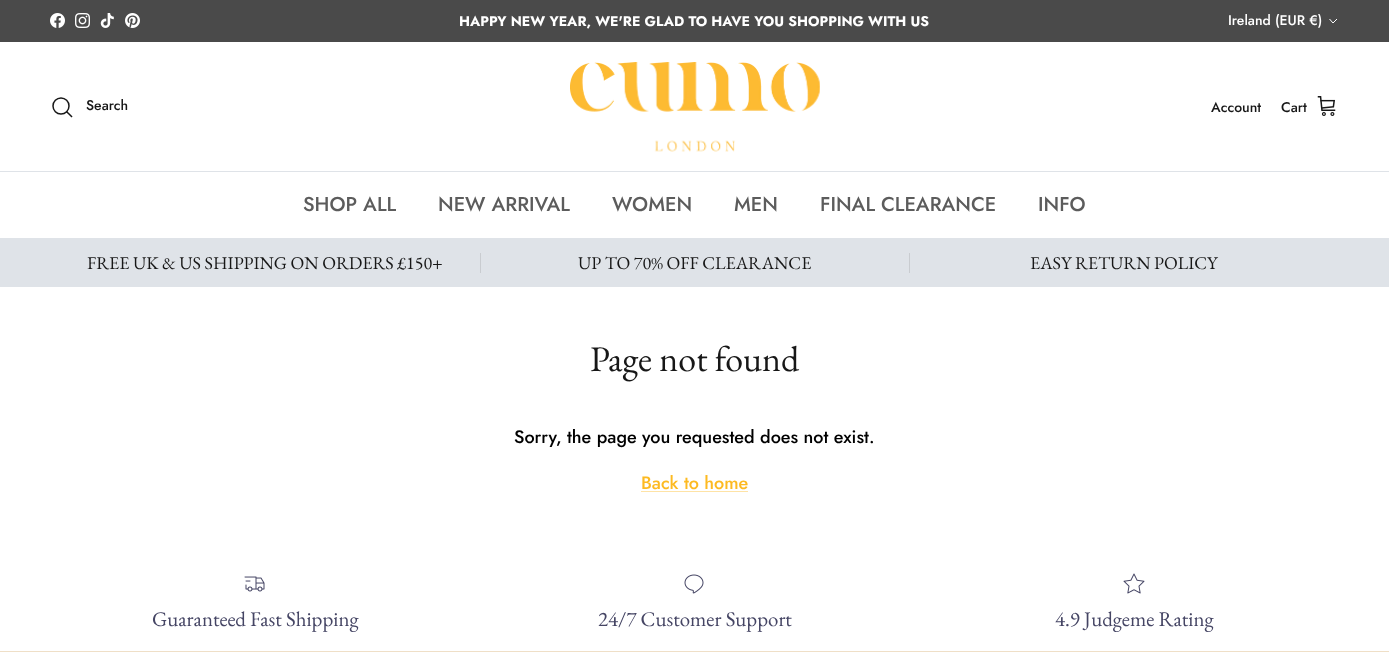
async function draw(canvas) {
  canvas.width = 1389
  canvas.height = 661
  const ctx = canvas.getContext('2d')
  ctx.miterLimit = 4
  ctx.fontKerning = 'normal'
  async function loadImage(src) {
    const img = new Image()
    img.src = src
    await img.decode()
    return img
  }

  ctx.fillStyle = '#fff'
  ctx.fillRect(0, 0, 1389, 661)
  ctx.fillStyle = '#4a4a4a'
  ctx.fillRect(0, 0, 1389, 42)
  ctx.drawImage(await loadImage('image0.png'), 50, 13, 15, 15)
  ctx.drawImage(await loadImage('image1.png'), 75, 13, 15, 15)
  ctx.drawImage(await loadImage('image2.png'), 100, 13, 14, 15)
  ctx.drawImage(await loadImage('image3.png'), 125, 13, 15, 15)
  ctx.font = 'bold 14px Jost'
  ctx.fillStyle = '#fff'
  ctx.fillText('HAPPY NEW YEAR, WE\'RE GLAD TO HAVE YOU SHOPPING WITH US', 459, 26)
  ctx.font = '500 14px Jost'
  ctx.fillText('Ireland (EUR €)', 1228, 25)
  ctx.beginPath()
  ctx.moveTo(1337, 19)
  ctx.lineTo(1333, 23)
  ctx.lineTo(1329.5, 19)
  ctx.strokeStyle = '#fff'
  ctx.stroke()
  ctx.fillStyle = '#dfe3e8'
  ctx.fillRect(0, 171, 1389, 1)
  ctx.beginPath()
  ctx.arc(61, 106, 8, 0, 2 * Math.PI)
  ctx.strokeStyle = '#171717'
  ctx.lineWidth = 1.5
  ctx.stroke()
  ctx.fillStyle = '#171717'
  ctx.fillText('Search', 86, 110)
  ctx.beginPath()
  ctx.moveTo(67, 112)
  ctx.lineTo(71.5, 116.5)
  ctx.lineCap = 'square'
  ctx.stroke()
  ctx.drawImage(await loadImage('image4.png'), 570, 62, 250, 90)
  ctx.fillText('Account', 1211, 112)
  ctx.fillText('Cart', 1281, 112)
  ctx.drawImage(await loadImage('image5.png'), 1317, 96, 19, 20)
  ctx.font = '500 20px Jost'
  ctx.fillStyle = '#5c5c5c'
  ctx.fillText('SHOP ALL', 303, 211)
  ctx.fillText('NEW ARRIVAL', 438, 211)
  ctx.fillText('WOMEN', 612, 211)
  ctx.fillText('MEN', 734, 211)
  ctx.fillText('FINAL CLEARANCE', 820, 211)
  ctx.fillText('INFO', 1038, 211)
  ctx.fillStyle = '#dfe3e8'
  ctx.fillRect(0, 238, 1389, 49)
  ctx.font = '18px EB Garamond'
  ctx.fillStyle = '#171717'
  ctx.fillText('FREE UK & US SHIPPING ON ORDERS £150+', 87, 269)
  ctx.fillStyle = '#c9ccd0'
  ctx.fillRect(480, 253, 1, 20)
  ctx.fillStyle = '#171717'
  ctx.fillText('UP TO 70% OFF CLEARANCE', 578, 269)
  ctx.fillStyle = '#c9ccd0'
  ctx.fillRect(909, 253, 1, 20)
  ctx.fillStyle = '#171717'
  ctx.fillText('EASY RETURN POLICY', 1030, 269)
  ctx.font = '36px EB Garamond'
  ctx.fillText('Page not found', 590, 371)
  ctx.font = '500 18px Jost'
  ctx.fillStyle = '#000'
  ctx.fillText('Sorry, the page you requested does not exist.', 514, 443)
  ctx.fillStyle = '#fdba21'
  ctx.fillText('Back to home', 641, 489)
  ctx.fillStyle = '#fee3a6'
  ctx.fillRect(641, 491, 107, 1)
  ctx.drawImage(await loadImage('image6.png'), 244, 576, 21, 16)
  ctx.font = '20.9px EB Garamond'
  ctx.fillStyle = '#454564'
  ctx.fillText('Guaranteed Fast Shipping', 152, 626)
  ctx.drawImage(await loadImage('image7.png'), 684, 574, 20, 20)
  ctx.fillText('24/7 Customer Support', 598, 626)
  ctx.drawImage(await loadImage('image8.png'), 1123, 573, 22, 21)
  ctx.fillText('4.9 Judgeme Rating', 1055, 626)
  ctx.fillStyle = '#efdfc7'
  ctx.fillRect(0, 651, 1389, 1)
}

draw(document.querySelector('canvas'))
